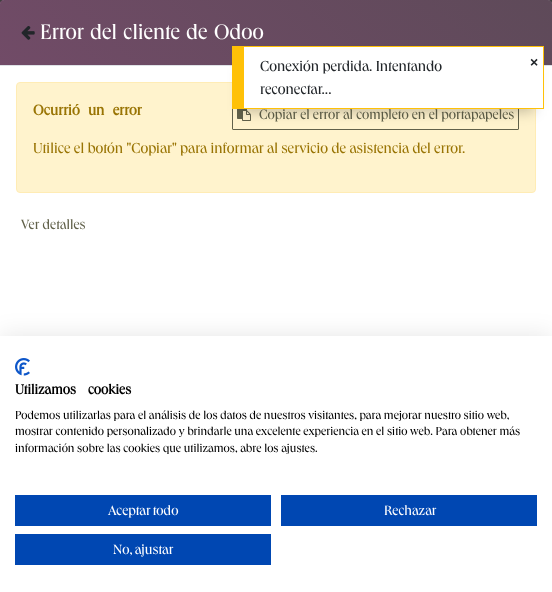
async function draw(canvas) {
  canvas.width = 552
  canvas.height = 592
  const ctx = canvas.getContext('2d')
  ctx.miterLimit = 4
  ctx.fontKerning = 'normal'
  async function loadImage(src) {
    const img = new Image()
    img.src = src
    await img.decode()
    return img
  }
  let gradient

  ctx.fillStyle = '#3f3f3e'
  ctx.fillRect(0, 0, 552, 592)
  ctx.fillStyle = '#fff'
  ctx.beginPath()
  ctx.roundRect(0, 0, 552, 592, 5)
  ctx.fill()
  gradient = ctx.createLinearGradient(122, 187, 430, -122)
  gradient.addColorStop(0, '#714b67')
  gradient.addColorStop(1, '#5e4a59')
  ctx.fillStyle = gradient
  ctx.beginPath()
  ctx.roundRect(0, 0, 552, 65, [4, 4, 0, 0])
  ctx.fill()
  ctx.fillStyle = '#dee2e6'
  ctx.fillRect(0, 65, 552, 1)
  ctx.drawImage(await loadImage('image0.png'), 21, 26, 14, 14)
  ctx.wordSpacing = '1.5px'
  ctx.font = '21.75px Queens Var'
  ctx.fillStyle = '#fff'
  ctx.fillText('Error del cliente de Odoo', 40, 39)
  ctx.fillStyle = '#fff3cd'
  ctx.beginPath()
  ctx.roundRect(16.5, 82.5, 519, 110, 3.5)
  ctx.fill()
  ctx.strokeStyle = '#ffecb5'
  ctx.stroke()
  ctx.wordSpacing = '5px'
  ctx.font = 'bold 15px Queens Var'
  ctx.fillStyle = '#997404'
  ctx.fillText('Ocurrió un error', 33, 115)
  ctx.beginPath()
  ctx.roundRect(232.5, 99.5, 286, 30, 0.5)
  ctx.strokeStyle = '#61614a'
  ctx.stroke()
  ctx.drawImage(await loadImage('image1.png'), 237, 109, 14, 12)
  ctx.wordSpacing = '0px'
  ctx.font = '14px Queens Var'
  ctx.fillStyle = '#61614a'
  ctx.fillText('Copiar el error al completo en el portapapeles', 259, 119)
  ctx.font = '15px Queens Var'
  ctx.fillStyle = '#997404'
  ctx.fillText('Utilice el botón "Copiar" para informar al servicio de asistencia del error.', 33, 153)
  ctx.font = '14px Queens Var'
  ctx.fillStyle = '#61614a'
  ctx.fillText('Ver detalles', 21, 229)
  ctx.fillStyle = '#00000040'
  ctx.filter = 'blur(7px)'
  ctx.beginPath()
  ctx.rect(242, 68, 292, 43)
  ctx.fill()
  ctx.filter = 'none'
  ctx.fillStyle = '#fff'
  ctx.fillRect(244, 47, 299, 61)
  ctx.fillStyle = '#ffc107'
  ctx.fillRect(244, 46, 300, 1)
  ctx.fillRect(543, 46, 1, 63)
  ctx.fillRect(244, 108, 300, 1)
  ctx.fillRect(232, 46, 12, 63)
  ctx.font = '15px Queens Var'
  ctx.fillStyle = '#212529'
  ctx.fillText('Conexión perdida. Intentando', 260, 71)
  ctx.fillText('reconectar...', 260, 94)
  ctx.font = 'bold 14px Liberation Sans'
  ctx.fillText('×', 530, 67)
  ctx.fillStyle = '#0000001a'
  ctx.filter = 'blur(12px)'
  ctx.beginPath()
  ctx.rect(0, 336, 552, 256)
  ctx.fill()
  ctx.filter = 'none'
  ctx.fillStyle = '#fff'
  ctx.fillRect(0, 336, 552, 256)
  ctx.drawImage(await loadImage('image2.png'), 15, 358, 15, 18)
  ctx.wordSpacing = '9px'
  ctx.font = 'bold 14px Queens Var'
  ctx.fillStyle = '#000'
  ctx.fillText('Utilizamos cookies', 15, 394)
  ctx.wordSpacing = '0px'
  ctx.font = '12px Queens Var'
  ctx.fillText('Podemos utilizarlas para el análisis de los datos de nuestros visitantes, para mejorar nuestro sitio web,', 15, 419)
  ctx.fillText('mostrar contenido personalizado y brindarle una excelente experiencia en el sitio web. Para obtener más', 15, 435)
  ctx.fillText('información sobre las cookies que utilizamos, abre los ajustes.', 15, 452)
  ctx.fillStyle = '#0047b2'
  ctx.fillRect(15, 495, 256, 31)
  ctx.wordSpacing = '-1px'
  ctx.font = '14px Queens Var'
  ctx.fillStyle = '#fff'
  ctx.fillText('Aceptar todo', 108, 515)
  ctx.fillStyle = '#0047b2'
  ctx.fillRect(281, 495, 256, 31)
  ctx.wordSpacing = '0px'
  ctx.fillStyle = '#fff'
  ctx.fillText('Rechazar', 384, 515)
  ctx.fillStyle = '#0047b2'
  ctx.fillRect(15, 534, 256, 31)
  ctx.wordSpacing = '-1px'
  ctx.fillStyle = '#fff'
  ctx.fillText('No, ajustar', 113, 554)
}

draw(document.querySelector('canvas'))
